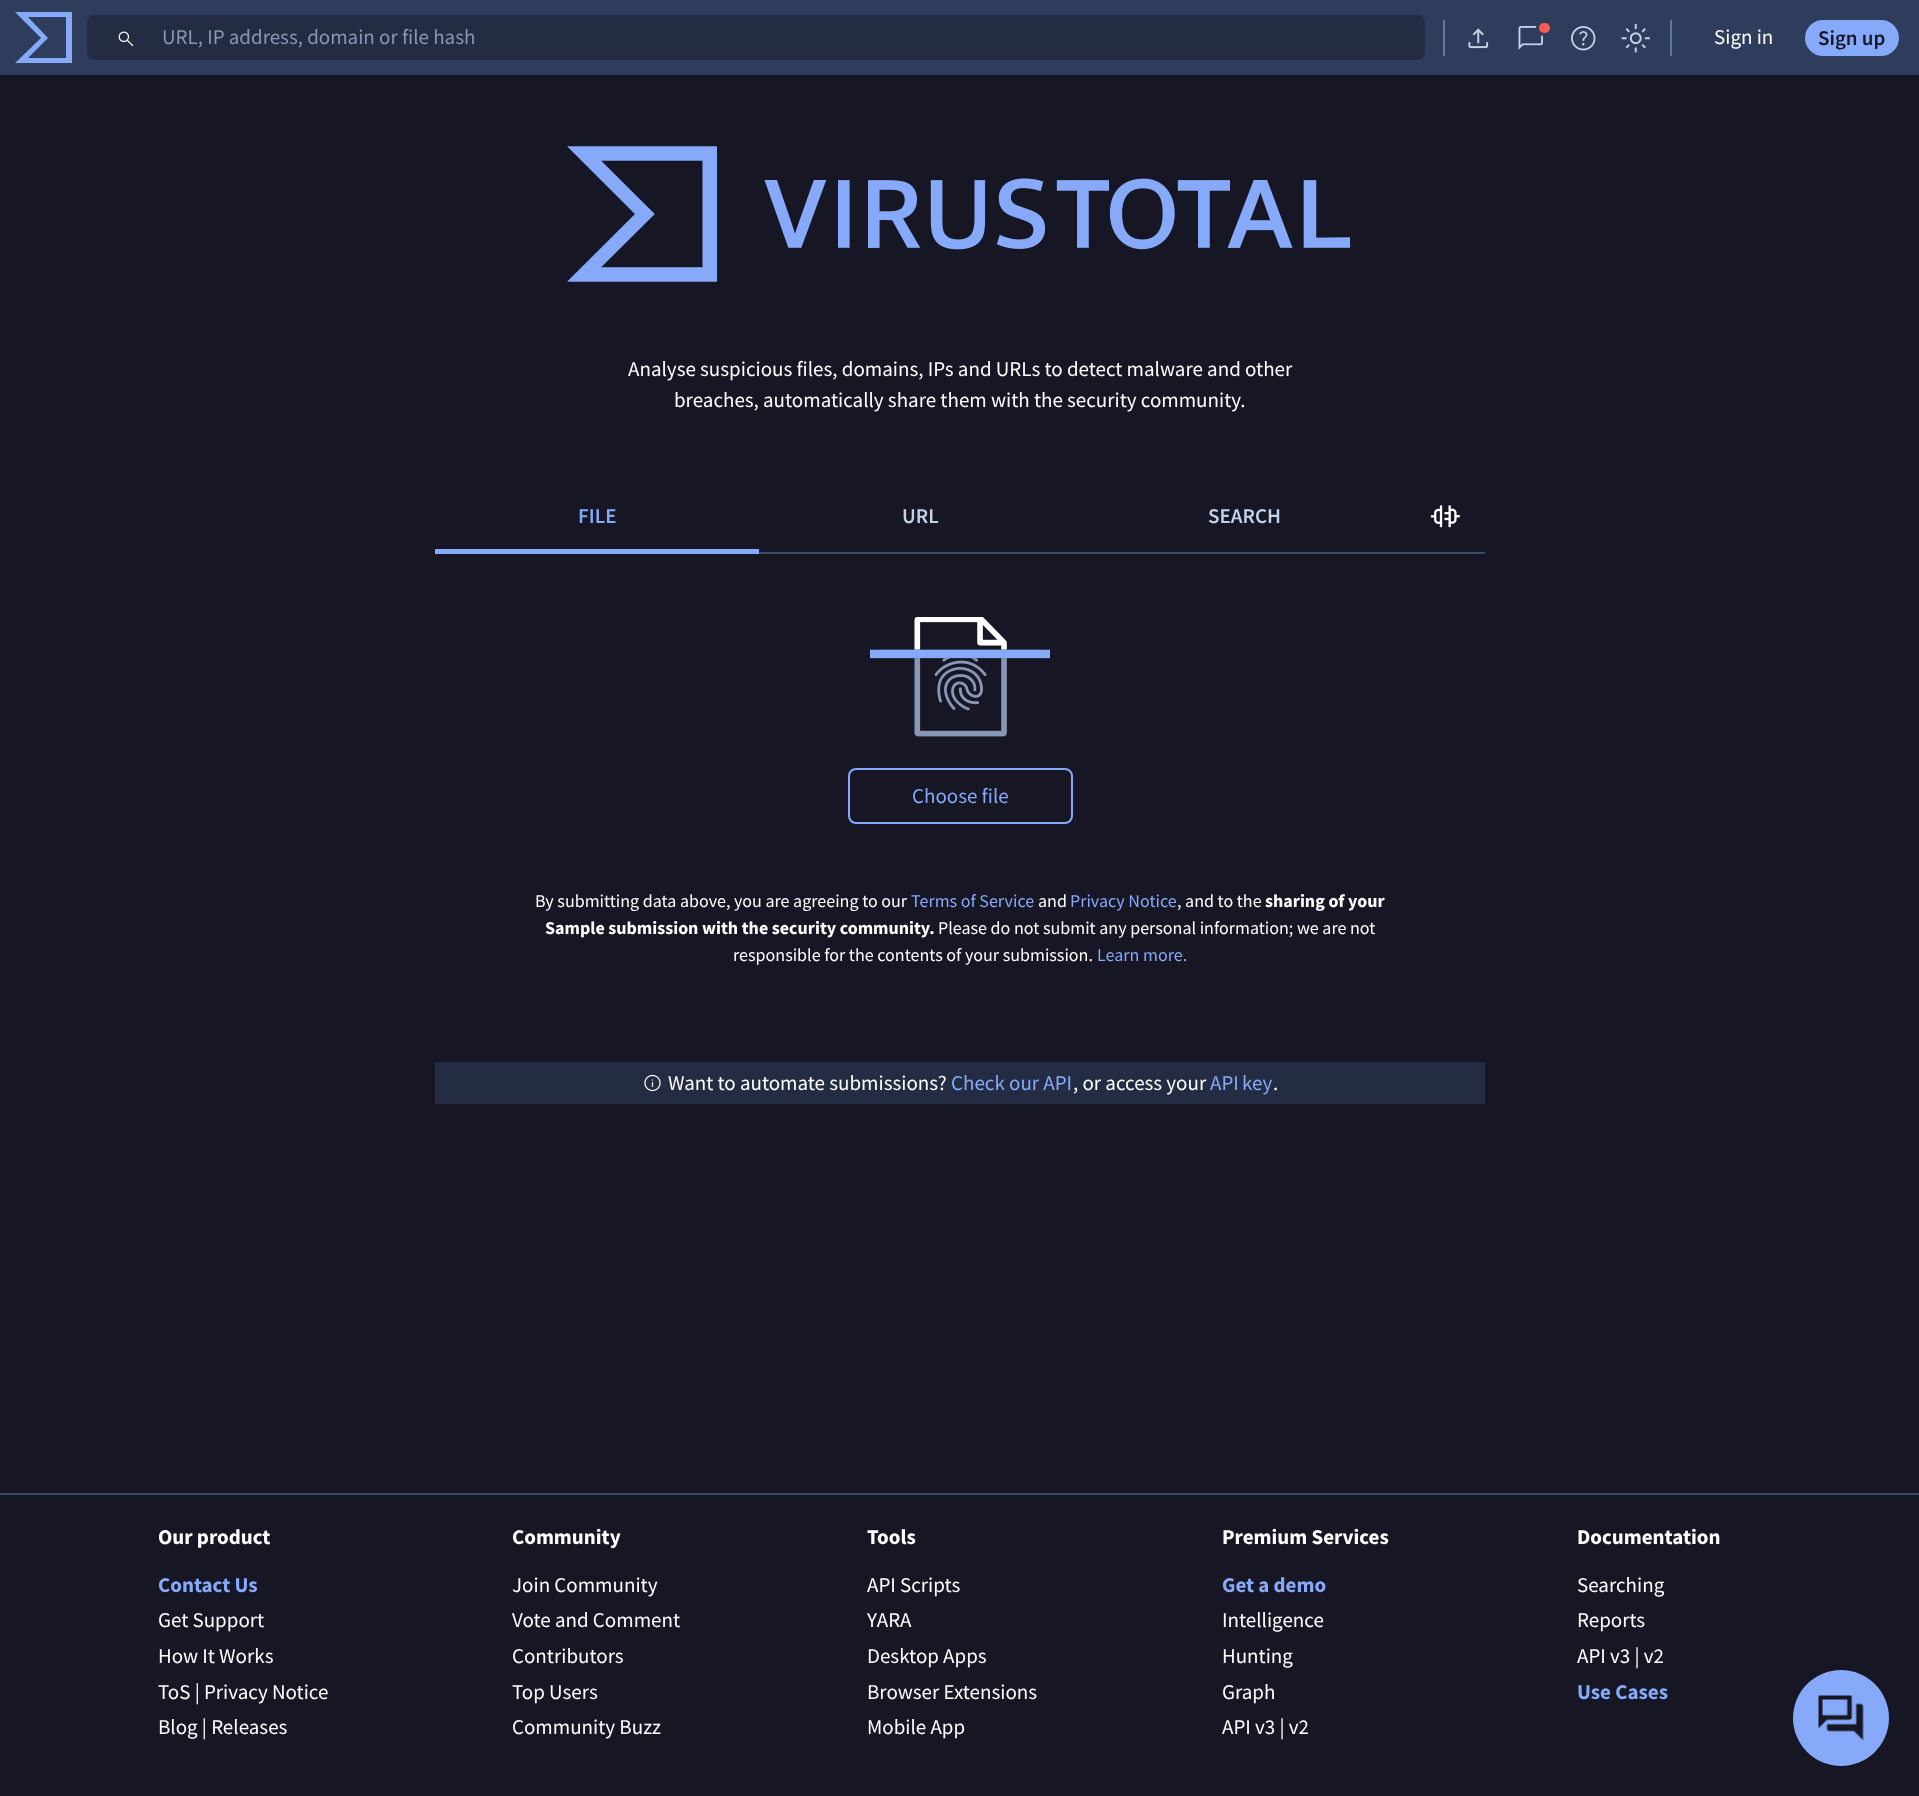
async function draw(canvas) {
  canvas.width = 1919
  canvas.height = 1796
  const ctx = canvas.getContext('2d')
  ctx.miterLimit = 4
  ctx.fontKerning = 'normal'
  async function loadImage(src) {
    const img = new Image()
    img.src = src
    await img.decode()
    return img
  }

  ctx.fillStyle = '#161625'
  ctx.fillRect(0, 0, 1919, 1796)
  ctx.fillStyle = '#2f3d5c'
  ctx.fillRect(0, 0, 1919, 75)
  ctx.fillStyle = '#86aaf9'
  ctx.beginPath()
  ctx.moveTo(41, 38)
  ctx.lineTo(15, 63)
  ctx.lineTo(72, 63)
  ctx.lineTo(72, 12)
  ctx.lineTo(15, 12)
  ctx.closePath()
  ctx.moveTo(66, 58)
  ctx.lineTo(28, 58)
  ctx.lineTo(48, 38)
  ctx.lineTo(28, 17)
  ctx.lineTo(66, 17)
  ctx.closePath()
  ctx.fill('evenodd')
  ctx.fillStyle = '#232c42'
  ctx.beginPath()
  ctx.roundRect(87, 15, 1338, 45, 8)
  ctx.fill()
  ctx.drawImage(await loadImage('image0.png'), 118, 31, 16, 16)
  ctx.font = '21px Source Sans Pro'
  ctx.fillStyle = '#8997b4'
  ctx.fillText('URL, IP address, domain or file hash', 162, 44)
  ctx.fillStyle = '#6275a3'
  ctx.fillRect(1443, 20, 2, 36)
  ctx.drawImage(await loadImage('image1.png'), 1468, 28, 21, 21)
  ctx.drawImage(await loadImage('image2.png'), 1518, 26, 25, 24)
  ctx.fillStyle = '#ff5a50'
  ctx.beginPath()
  ctx.roundRect(1537.5, 21.5, 14, 13, 6.5)
  ctx.fill()
  ctx.strokeStyle = '#2f3d5c'
  ctx.lineWidth = 3
  ctx.stroke()
  ctx.drawImage(await loadImage('image3.png'), 1571, 26, 25, 25)
  ctx.drawImage(await loadImage('image4.png'), 1621, 24, 29, 29)
  ctx.fillStyle = '#6275a3'
  ctx.fillRect(1670, 20, 2, 36)
  ctx.fillStyle = '#fff'
  ctx.fillText('Sign in', 1714, 44)
  ctx.fillStyle = '#86aaf9'
  ctx.beginPath()
  ctx.roundRect(1805, 20, 94, 36, 18)
  ctx.fill()
  ctx.font = '600 21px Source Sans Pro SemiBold'
  ctx.fillStyle = '#161625'
  ctx.fillText('Sign up', 1818, 45)
  ctx.drawImage(await loadImage('image5.png'), 567, 146, 784, 136)
  ctx.font = '21px Source Sans Pro'
  ctx.fillStyle = '#fff'
  ctx.fillText('Analyse suspicious files, domains, IPs and URLs to detect malware and other', 628, 376)
  ctx.fillText('breaches, automatically share them with the security community.', 674, 407)
  ctx.fillStyle = '#3d4a69'
  ctx.fillRect(759, 552, 726, 2)
  ctx.fillStyle = '#86aaf9'
  ctx.fillRect(435, 549, 324, 5)
  ctx.font = '600 21px Source Sans Pro SemiBold'
  ctx.fillText('FILE', 578, 523)
  ctx.fillStyle = '#c3d2e8'
  ctx.fillText('URL', 902, 523)
  ctx.fillText('SEARCH', 1208, 523)
  ctx.drawImage(await loadImage('image6.png'), 1430, 505, 30, 23)
  ctx.drawImage(await loadImage('image7.png'), 870, 617, 180, 120)
  ctx.beginPath()
  ctx.roundRect(849, 769, 223, 54, 7)
  ctx.strokeStyle = '#86aaf9'
  ctx.lineWidth = 2
  ctx.stroke()
  ctx.font = '21px Source Sans Pro'
  ctx.fillStyle = '#86aaf9'
  ctx.fillText('Choose file', 912, 803)
  ctx.font = '18px Source Sans Pro'
  ctx.fillStyle = '#fff'
  ctx.fillText('By submitting data above, you are agreeing to our', 535, 907)
  ctx.fillStyle = '#86aaf9'
  ctx.fillText('Terms of Service', 911, 907)
  ctx.fillStyle = '#fff'
  ctx.fillText('and', 1038, 907)
  ctx.fillStyle = '#86aaf9'
  ctx.fillText('Privacy Notice', 1070, 907)
  ctx.fillStyle = '#fff'
  ctx.fillText(', and to the', 1177, 907)
  ctx.font = 'bold 18px Source Sans Pro'
  ctx.fillText('sharing of your', 1265, 907)
  ctx.fillText('Sample submission with the security community.', 545, 934)
  ctx.font = '18px Source Sans Pro'
  ctx.fillText('Please do not submit any personal information; we are not', 938, 934)
  ctx.fillText('responsible for the contents of your submission.', 733, 961)
  ctx.fillStyle = '#86aaf9'
  ctx.fillText('Learn more.', 1097, 961)
  ctx.fillStyle = '#232c42'
  ctx.fillRect(435, 1062, 1050, 42)
  ctx.drawImage(await loadImage('image8.png'), 644, 1074, 17, 18)
  ctx.font = '21px Source Sans Pro'
  ctx.fillStyle = '#fff'
  ctx.fillText('Want to automate submissions?', 668, 1090)
  ctx.fillStyle = '#86aaf9'
  ctx.fillText('Check our API', 951, 1090)
  ctx.fillStyle = '#fff'
  ctx.fillText(', or access your', 1073, 1090)
  ctx.wordSpacing = '-1px'
  ctx.fillStyle = '#86aaf9'
  ctx.fillText('API key', 1210, 1090)
  ctx.wordSpacing = '0px'
  ctx.fillStyle = '#fff'
  ctx.fillText('.', 1273, 1090)
  ctx.fillStyle = '#3d4a69'
  ctx.fillRect(0, 1493, 1919, 2)
  ctx.font = 'bold 21px Source Sans Pro'
  ctx.fillStyle = '#fff'
  ctx.fillText('Our product', 158, 1544)
  ctx.fillStyle = '#86aaf9'
  ctx.fillText('Contact Us', 158, 1592)
  ctx.font = '21px Source Sans Pro'
  ctx.fillStyle = '#fff'
  ctx.fillText('Get Support', 158, 1627)
  ctx.fillText('How It Works', 158, 1663)
  ctx.fillText('ToS | Privacy Notice', 158, 1699)
  ctx.fillText('Blog | Releases', 158, 1734)
  ctx.font = 'bold 21px Source Sans Pro'
  ctx.fillText('Community', 512, 1544)
  ctx.font = '21px Source Sans Pro'
  ctx.fillText('Join Community', 512, 1592)
  ctx.fillText('Vote and Comment', 512, 1627)
  ctx.fillText('Contributors', 512, 1663)
  ctx.fillText('Top Users', 512, 1699)
  ctx.fillText('Community Buzz', 512, 1734)
  ctx.font = 'bold 21px Source Sans Pro'
  ctx.fillText('Tools', 867, 1544)
  ctx.font = '21px Source Sans Pro'
  ctx.fillText('API Scripts', 867, 1592)
  ctx.fillText('YARA', 867, 1627)
  ctx.fillText('Desktop Apps', 867, 1663)
  ctx.fillText('Browser Extensions', 867, 1699)
  ctx.fillText('Mobile App', 867, 1734)
  ctx.font = 'bold 21px Source Sans Pro'
  ctx.fillText('Premium Services', 1222, 1544)
  ctx.fillStyle = '#86aaf9'
  ctx.fillText('Get a demo', 1222, 1592)
  ctx.font = '21px Source Sans Pro'
  ctx.fillStyle = '#fff'
  ctx.fillText('Intelligence', 1222, 1627)
  ctx.fillText('Hunting', 1222, 1663)
  ctx.fillText('Graph', 1222, 1699)
  ctx.fillText('API v3 | v2', 1222, 1734)
  ctx.font = 'bold 21px Source Sans Pro'
  ctx.fillText('Documentation', 1577, 1544)
  ctx.font = '21px Source Sans Pro'
  ctx.fillText('Searching', 1577, 1592)
  ctx.fillText('Reports', 1577, 1627)
  ctx.fillText('API v3 | v2', 1577, 1663)
  ctx.font = 'bold 21px Source Sans Pro'
  ctx.fillStyle = '#86aaf9'
  ctx.fillText('Use Cases', 1577, 1699)
  ctx.beginPath()
  ctx.arc(1841, 1718, 48, 0, 2 * Math.PI)
  ctx.fill()
  ctx.drawImage(await loadImage('image9.png'), 1818, 1695, 46, 46)
}

draw(document.querySelector('canvas'))
